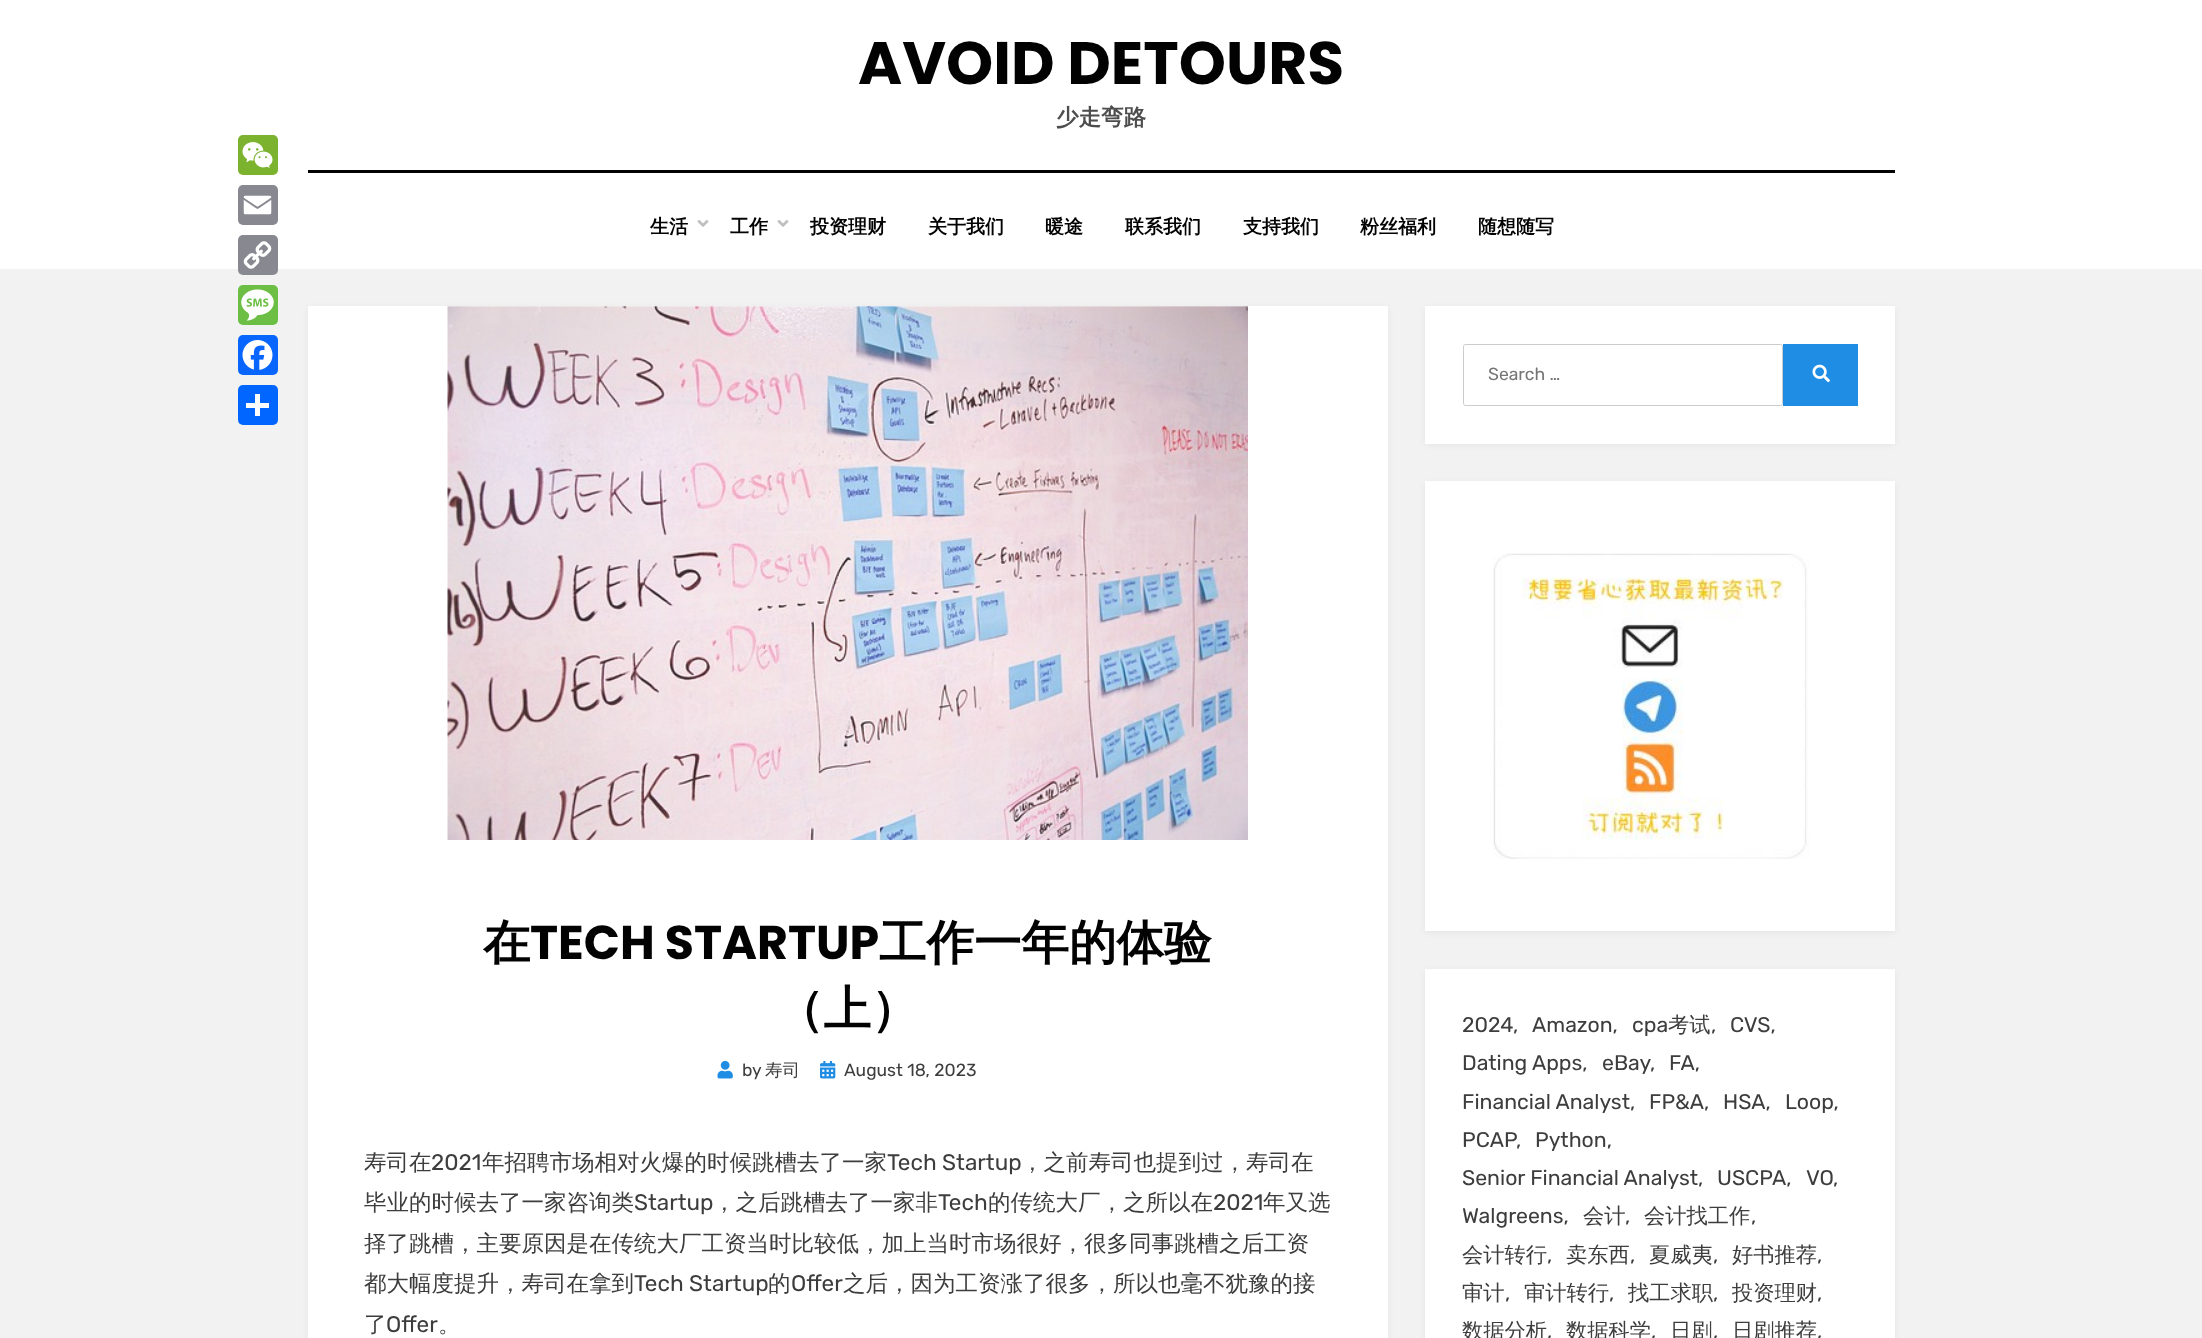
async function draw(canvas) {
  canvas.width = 2202
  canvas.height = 1338
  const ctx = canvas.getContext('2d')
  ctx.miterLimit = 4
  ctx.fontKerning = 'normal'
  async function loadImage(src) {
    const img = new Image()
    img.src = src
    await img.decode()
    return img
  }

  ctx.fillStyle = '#f2f2f2'
  ctx.fillRect(0, 0, 2202, 1338)
  ctx.fillStyle = '#fff'
  ctx.fillRect(0, 0, 2202, 269)
  ctx.font = 'bold 60px Poppins'
  ctx.fillStyle = '#020202'
  ctx.fillText('AVOID DETOURS', 858, 84)
  ctx.font = 'bold 22.5px WenQuanYi Zen Hei'
  ctx.fillStyle = '#4d4d4d'
  ctx.fillText('少走弯路', 1056, 125)
  ctx.fillStyle = '#020202'
  ctx.fillRect(308, 170, 1587, 3)
  ctx.font = 'bold 19px WenQuanYi Zen Hei'
  ctx.fillText('生活', 650, 233)
  ctx.drawImage(await loadImage('image0.png'), 697, 220, 12, 7)
  ctx.fillText('工作', 730, 233)
  ctx.drawImage(await loadImage('image0.png'), 777, 220, 12, 7)
  ctx.fillText('投资理财', 810, 233)
  ctx.fillText('关于我们', 928, 233)
  ctx.fillText('暖途', 1045, 233)
  ctx.fillText('联系我们', 1125, 233)
  ctx.fillText('支持我们', 1243, 233)
  ctx.fillText('粉丝福利', 1360, 233)
  ctx.fillText('随想随写', 1478, 233)
  ctx.fillStyle = '#7bb32e'
  ctx.beginPath()
  ctx.roundRect(238, 135, 40, 40, 5)
  ctx.fill()
  ctx.drawImage(await loadImage('image1.png'), 242, 142, 31, 26)
  ctx.fillStyle = '#888990'
  ctx.beginPath()
  ctx.roundRect(238, 185, 40, 40, 5)
  ctx.fill()
  ctx.drawImage(await loadImage('image2.png'), 243, 195, 29, 20)
  ctx.beginPath()
  ctx.roundRect(238, 235, 40, 40, 5)
  ctx.fill()
  ctx.drawImage(await loadImage('image3.png'), 243, 241, 29, 28)
  ctx.fillStyle = '#6cbe45'
  ctx.beginPath()
  ctx.roundRect(238, 285, 40, 40, 5)
  ctx.fill()
  ctx.drawImage(await loadImage('image4.png'), 241, 289, 33, 32)
  ctx.fillStyle = '#0866ff'
  ctx.beginPath()
  ctx.roundRect(238, 335, 40, 40, 5)
  ctx.fill()
  ctx.drawImage(await loadImage('image5.png'), 242, 340, 31, 30)
  ctx.fillStyle = '#0166ff'
  ctx.beginPath()
  ctx.roundRect(238, 385, 40, 40, 5)
  ctx.fill()
  ctx.fillStyle = '#fff'
  ctx.fillRect(255, 394, 5, 22)
  ctx.fillRect(246, 403, 23, 5)
  ctx.fillStyle = '#0000010d'
  ctx.filter = 'blur(3px)'
  ctx.beginPath()
  ctx.rect(308, 308, 1080, 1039)
  ctx.fill()
  ctx.filter = 'none'
  ctx.fillStyle = '#fff'
  ctx.fillRect(308, 306, 1080, 1032)
  ctx.drawImage(await loadImage('image6.png'), 447, 306, 801, 534)
  ctx.font = 'bold 47.5px WenQuanYi Zen Hei'
  ctx.fillStyle = '#020202'
  ctx.fillText('在', 483, 959)
  ctx.font = 'bold 47.5px Poppins'
  ctx.fillText('TECH STARTUP', 530, 959)
  ctx.font = 'bold 47.5px WenQuanYi Zen Hei'
  ctx.fillText('工作一年的体验', 879, 959)
  ctx.fillText('（上）', 776, 1025)
  ctx.drawImage(await loadImage('image7.png'), 717, 1060, 16, 19)
  ctx.font = '17.5px Rubik'
  ctx.fillStyle = '#3d3d3d'
  ctx.fillText('by', 742, 1076)
  ctx.font = '500 17.5px WenQuanYi Zen Hei'
  ctx.fillText('寿司', 765, 1076)
  ctx.drawImage(await loadImage('image8.png'), 820, 1060, 16, 19)
  ctx.font = '17.5px Rubik'
  ctx.fillText('August 18, 2023', 844, 1076)
  ctx.font = '500 22.5px WenQuanYi Zen Hei'
  ctx.fillText('寿司在', 364, 1170)
  ctx.font = '22.5px Rubik'
  ctx.fillText('2021', 431, 1170)
  ctx.font = '500 22.5px WenQuanYi Zen Hei'
  ctx.fillText('年招聘市场相对火爆的时候跳槽去了一家', 482, 1170)
  ctx.font = '22.5px Rubik'
  ctx.fillText('Tech Startup', 887, 1170)
  ctx.font = '500 22.5px WenQuanYi Zen Hei'
  ctx.fillText('，之前寿司也提到过，寿司在', 1021, 1170)
  ctx.fillText('毕业的时候去了一家咨询类', 364, 1210)
  ctx.font = '22.5px Rubik'
  ctx.fillText('Startup', 634, 1210)
  ctx.font = '500 22.5px WenQuanYi Zen Hei'
  ctx.fillText('，之后跳槽去了一家非', 713, 1210)
  ctx.font = '22.5px Rubik'
  ctx.fillText('Tech', 938, 1210)
  ctx.font = '500 22.5px WenQuanYi Zen Hei'
  ctx.fillText('的传统大厂，之所以在', 988, 1210)
  ctx.font = '22.5px Rubik'
  ctx.fillText('2021', 1213, 1210)
  ctx.font = '500 22.5px WenQuanYi Zen Hei'
  ctx.fillText('年又选', 1263, 1210)
  ctx.fillText('择了跳槽，主要原因是在传统大厂工资当时比较低，加上当时市场很好，很多同事跳槽之后工资', 364, 1251)
  ctx.fillText('都大幅度提升，寿司在拿到', 364, 1291)
  ctx.font = '22.5px Rubik'
  ctx.fillText('Tech Startup', 634, 1291)
  ctx.font = '500 22.5px WenQuanYi Zen Hei'
  ctx.fillText('的', 768, 1291)
  ctx.font = '22.5px Rubik'
  ctx.fillText('Offer', 791, 1291)
  ctx.font = '500 22.5px WenQuanYi Zen Hei'
  ctx.fillText('之后，因为工资涨了很多，所以也毫不犹豫的接', 843, 1291)
  ctx.fillText('了', 364, 1332)
  ctx.font = '22.5px Rubik'
  ctx.fillText('Offer', 386, 1332)
  ctx.font = '500 22.5px WenQuanYi Zen Hei'
  ctx.fillText('。', 438, 1332)
  ctx.fillStyle = '#0000010d'
  ctx.filter = 'blur(3px)'
  ctx.beginPath()
  ctx.rect(1425, 308, 470, 137)
  ctx.fill()
  ctx.filter = 'none'
  ctx.fillStyle = '#fff'
  ctx.fillRect(1425, 306, 470, 138)
  ctx.beginPath()
  ctx.roundRect(1463.5, 344.5, 319, 61, 2)
  ctx.strokeStyle = '#ccc'
  ctx.stroke()
  ctx.font = '17.5px Rubik'
  ctx.fillStyle = '#757575'
  ctx.fillText('Search …', 1488, 380)
  ctx.fillStyle = '#208de5'
  ctx.fillRect(1783, 344, 75, 62)
  ctx.drawImage(await loadImage('image9.png'), 1812, 364, 18, 19)
  ctx.fillStyle = '#0000010d'
  ctx.filter = 'blur(3px)'
  ctx.beginPath()
  ctx.rect(1425, 483, 470, 450)
  ctx.fill()
  ctx.filter = 'none'
  ctx.fillStyle = '#fff'
  ctx.fillRect(1425, 481, 470, 450)
  ctx.drawImage(await loadImage('image10.png'), 1493, 553, 317, 306)
  ctx.fillStyle = '#0000010d'
  ctx.filter = 'blur(3px)'
  ctx.beginPath()
  ctx.rect(1425, 970, 470, 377)
  ctx.fill()
  ctx.filter = 'none'
  ctx.fillStyle = '#fff'
  ctx.fillRect(1425, 969, 470, 369)
  ctx.font = '21.25px Rubik'
  ctx.fillStyle = '#3d3d3d'
  ctx.fillText('2024', 1462, 1032)
  ctx.fillText(',', 1513, 1032)
  ctx.fillText('Amazon,', 1532, 1032)
  ctx.fillText('cpa', 1632, 1032)
  ctx.font = '500 21.25px WenQuanYi Zen Hei'
  ctx.fillText('考试', 1668, 1032)
  ctx.font = '21.25px Rubik'
  ctx.fillText(',', 1711, 1032)
  ctx.fillText('CVS,', 1730, 1032)
  ctx.fillText('Dating Apps,', 1462, 1070)
  ctx.fillText('eBay', 1602, 1070)
  ctx.fillText(',', 1650, 1070)
  ctx.fillText('FA,', 1669, 1070)
  ctx.fillText('Financial Analyst,', 1462, 1109)
  ctx.fillText('FP&A,', 1649, 1109)
  ctx.fillText('HSA,', 1723, 1109)
  ctx.fillText('Loop,', 1785, 1109)
  ctx.fillText('PCAP', 1462, 1147)
  ctx.fillText(',', 1516, 1147)
  ctx.fillText('Python,', 1535, 1147)
  ctx.fillText('Senior Financial Analyst,', 1462, 1185)
  ctx.fillText('USCPA,', 1717, 1185)
  ctx.fillText('VO', 1806, 1185)
  ctx.fillText(',', 1833, 1185)
  ctx.fillText('Walgreens,', 1462, 1223)
  ctx.font = '500 21.25px WenQuanYi Zen Hei'
  ctx.fillText('会计', 1583, 1223)
  ctx.font = '21.25px Rubik'
  ctx.fillText(',', 1625, 1223)
  ctx.font = '500 21.25px WenQuanYi Zen Hei'
  ctx.fillText('会计找工作', 1644, 1223)
  ctx.font = '21.25px Rubik'
  ctx.fillText(',', 1751, 1223)
  ctx.font = '500 21.25px WenQuanYi Zen Hei'
  ctx.fillText('会计转行', 1462, 1262)
  ctx.font = '21.25px Rubik'
  ctx.fillText(',', 1547, 1262)
  ctx.font = '500 21.25px WenQuanYi Zen Hei'
  ctx.fillText('卖东西', 1566, 1262)
  ctx.font = '21.25px Rubik'
  ctx.fillText(',', 1630, 1262)
  ctx.font = '500 21.25px WenQuanYi Zen Hei'
  ctx.fillText('夏威夷', 1649, 1262)
  ctx.font = '21.25px Rubik'
  ctx.fillText(',', 1713, 1262)
  ctx.font = '500 21.25px WenQuanYi Zen Hei'
  ctx.fillText('好书推荐', 1732, 1262)
  ctx.font = '21.25px Rubik'
  ctx.fillText(',', 1817, 1262)
  ctx.font = '500 21.25px WenQuanYi Zen Hei'
  ctx.fillText('审计', 1462, 1300)
  ctx.font = '21.25px Rubik'
  ctx.fillText(',', 1505, 1300)
  ctx.font = '500 21.25px WenQuanYi Zen Hei'
  ctx.fillText('审计转行', 1524, 1300)
  ctx.font = '21.25px Rubik'
  ctx.fillText(',', 1609, 1300)
  ctx.font = '500 21.25px WenQuanYi Zen Hei'
  ctx.fillText('找工求职', 1628, 1300)
  ctx.font = '21.25px Rubik'
  ctx.fillText(',', 1713, 1300)
  ctx.font = '500 21.25px WenQuanYi Zen Hei'
  ctx.fillText('投资理财', 1732, 1300)
  ctx.font = '21.25px Rubik'
  ctx.fillText(',', 1817, 1300)
  ctx.font = '500 21.25px WenQuanYi Zen Hei'
  ctx.fillText('数据分析', 1462, 1338)
  ctx.font = '21.25px Rubik'
  ctx.fillText(',', 1547, 1338)
  ctx.font = '500 21.25px WenQuanYi Zen Hei'
  ctx.fillText('数据科学', 1566, 1338)
  ctx.font = '21.25px Rubik'
  ctx.fillText(',', 1651, 1338)
  ctx.font = '500 21.25px WenQuanYi Zen Hei'
  ctx.fillText('日剧', 1670, 1338)
  ctx.font = '21.25px Rubik'
  ctx.fillText(',', 1713, 1338)
  ctx.font = '500 21.25px WenQuanYi Zen Hei'
  ctx.fillText('日剧推荐', 1732, 1338)
  ctx.font = '21.25px Rubik'
  ctx.fillText(',', 1817, 1338)
}

draw(document.querySelector('canvas'))
